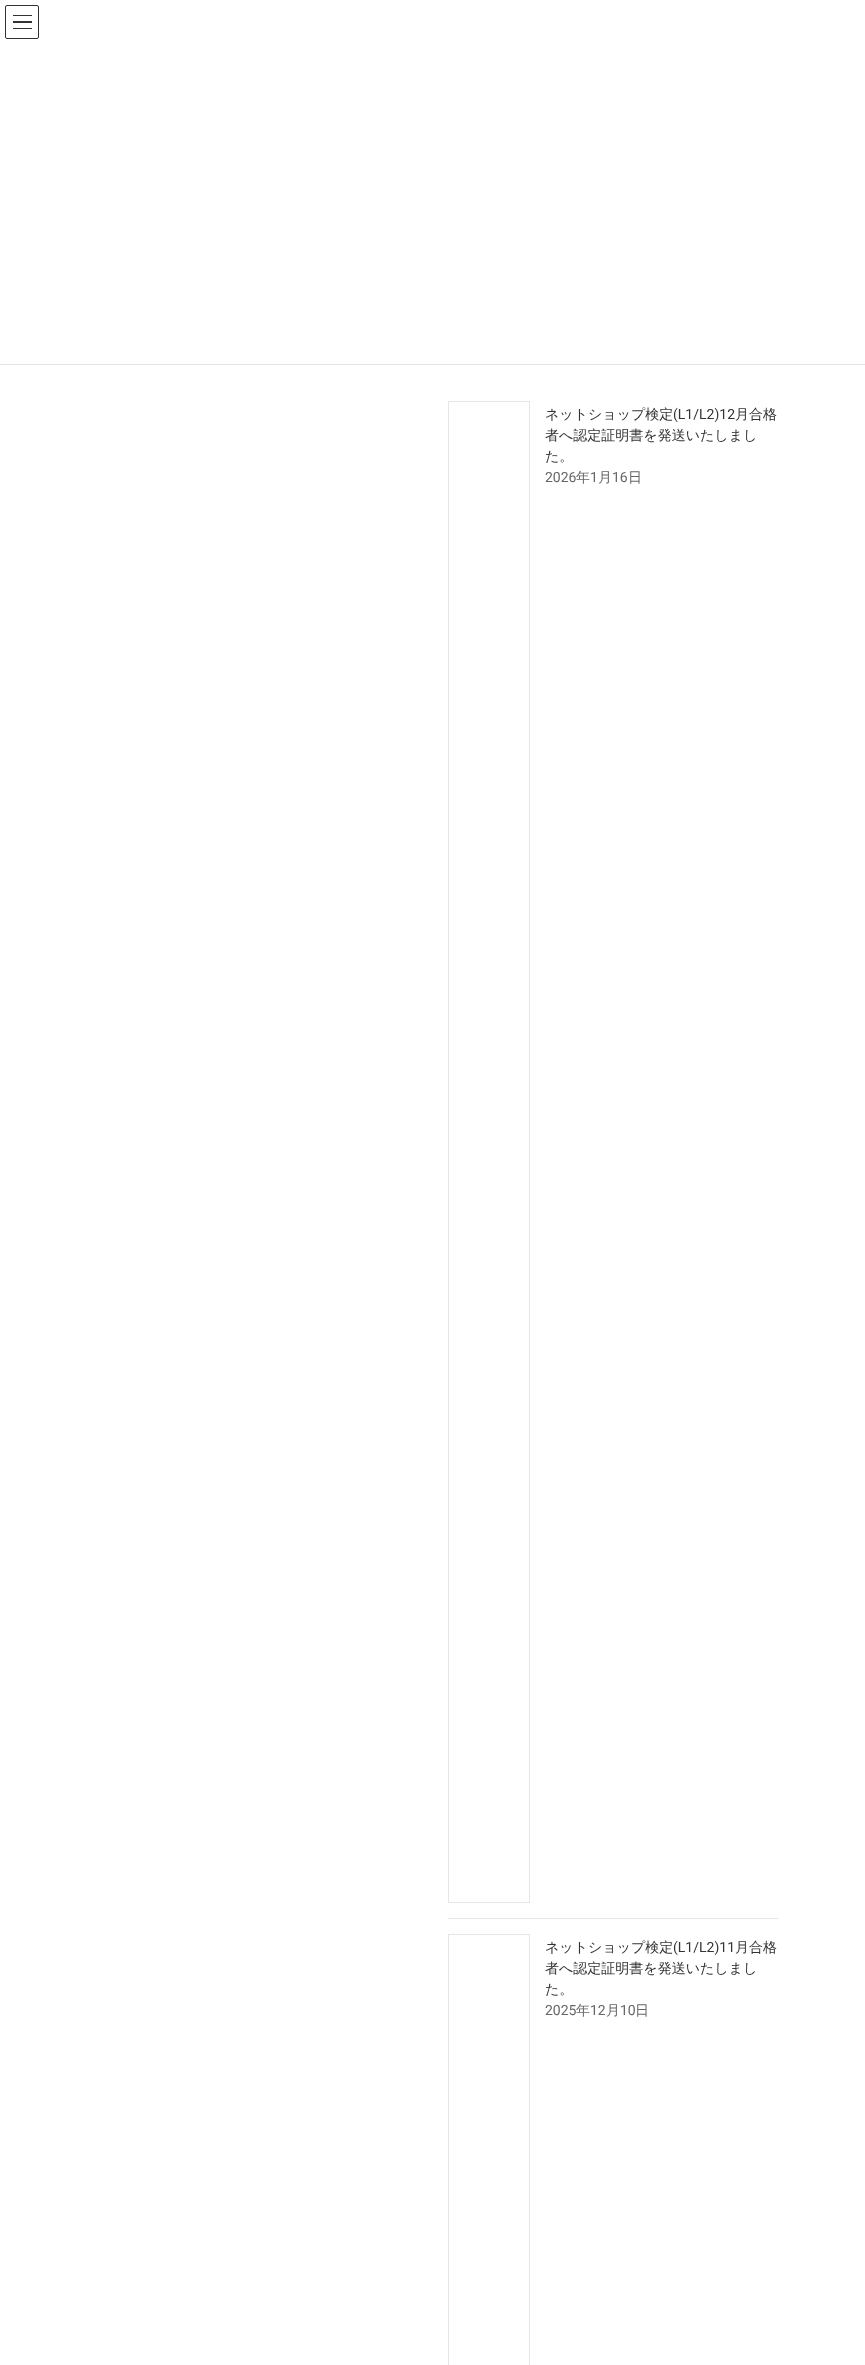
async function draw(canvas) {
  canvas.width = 865
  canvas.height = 2365
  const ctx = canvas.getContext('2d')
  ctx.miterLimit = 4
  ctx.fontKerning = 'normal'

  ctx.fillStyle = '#fff'
  ctx.fillRect(0, 0, 865, 2365)
  ctx.fillStyle = '#333'
  ctx.fillRect(13, 15, 19, 1)
  ctx.fillRect(13, 21, 19, 2)
  ctx.fillRect(13, 28, 19, 1)
  ctx.beginPath()
  ctx.roundRect(5.5, 5.5, 33, 33, 1.5)
  ctx.strokeStyle = '#333'
  ctx.stroke()
  ctx.fillStyle = '#e5e5e5'
  ctx.fillRect(0, 364, 865, 1)
  ctx.fillRect(448, 1918, 330, 1)
  ctx.strokeStyle = '#e5e5e5'
  ctx.strokeRect(448.5, 401.5, 81, 1501)
  ctx.font = '500 14px WenQuanYi Zen Hei'
  ctx.fillStyle = '#333'
  ctx.fillText('ネットショップ検定', 545, 419)
  ctx.font = '14px Roboto'
  ctx.fillText('(L1/L2)12', 673, 419)
  ctx.font = '500 14px WenQuanYi Zen Hei'
  ctx.fillText('月合格', 735, 419)
  ctx.fillText('者へ認定証明書を発送いたしまし', 545, 440)
  ctx.fillText('た。', 545, 461)
  ctx.font = '14px Roboto'
  ctx.fillStyle = '#666'
  ctx.fillText('2026', 545, 482)
  ctx.font = '500 14px WenQuanYi Zen Hei'
  ctx.fillText('年', 576, 482)
  ctx.font = '14px Roboto'
  ctx.fillText('1', 590, 482)
  ctx.font = '500 14px WenQuanYi Zen Hei'
  ctx.fillText('月', 598, 482)
  ctx.font = '14px Roboto'
  ctx.fillText('16', 612, 482)
  ctx.font = '500 14px WenQuanYi Zen Hei'
  ctx.fillText('日', 628, 482)
  ctx.strokeRect(448.5, 1934.5, 81, 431)
  ctx.fillStyle = '#333'
  ctx.fillText('ネットショップ検定', 545, 1952)
  ctx.font = '14px Roboto'
  ctx.fillText('(L1/L2)11', 673, 1952)
  ctx.font = '500 14px WenQuanYi Zen Hei'
  ctx.fillText('月合格', 735, 1952)
  ctx.fillText('者へ認定証明書を発送いたしまし', 545, 1973)
  ctx.fillText('た。', 545, 1994)
  ctx.font = '14px Roboto'
  ctx.fillStyle = '#666'
  ctx.fillText('2025', 545, 2015)
  ctx.font = '500 14px WenQuanYi Zen Hei'
  ctx.fillText('年', 576, 2015)
  ctx.font = '14px Roboto'
  ctx.fillText('12', 590, 2015)
  ctx.font = '500 14px WenQuanYi Zen Hei'
  ctx.fillText('月', 606, 2015)
  ctx.font = '14px Roboto'
  ctx.fillText('10', 620, 2015)
  ctx.font = '500 14px WenQuanYi Zen Hei'
  ctx.fillText('日', 635, 2015)
}

draw(document.querySelector('canvas'))
